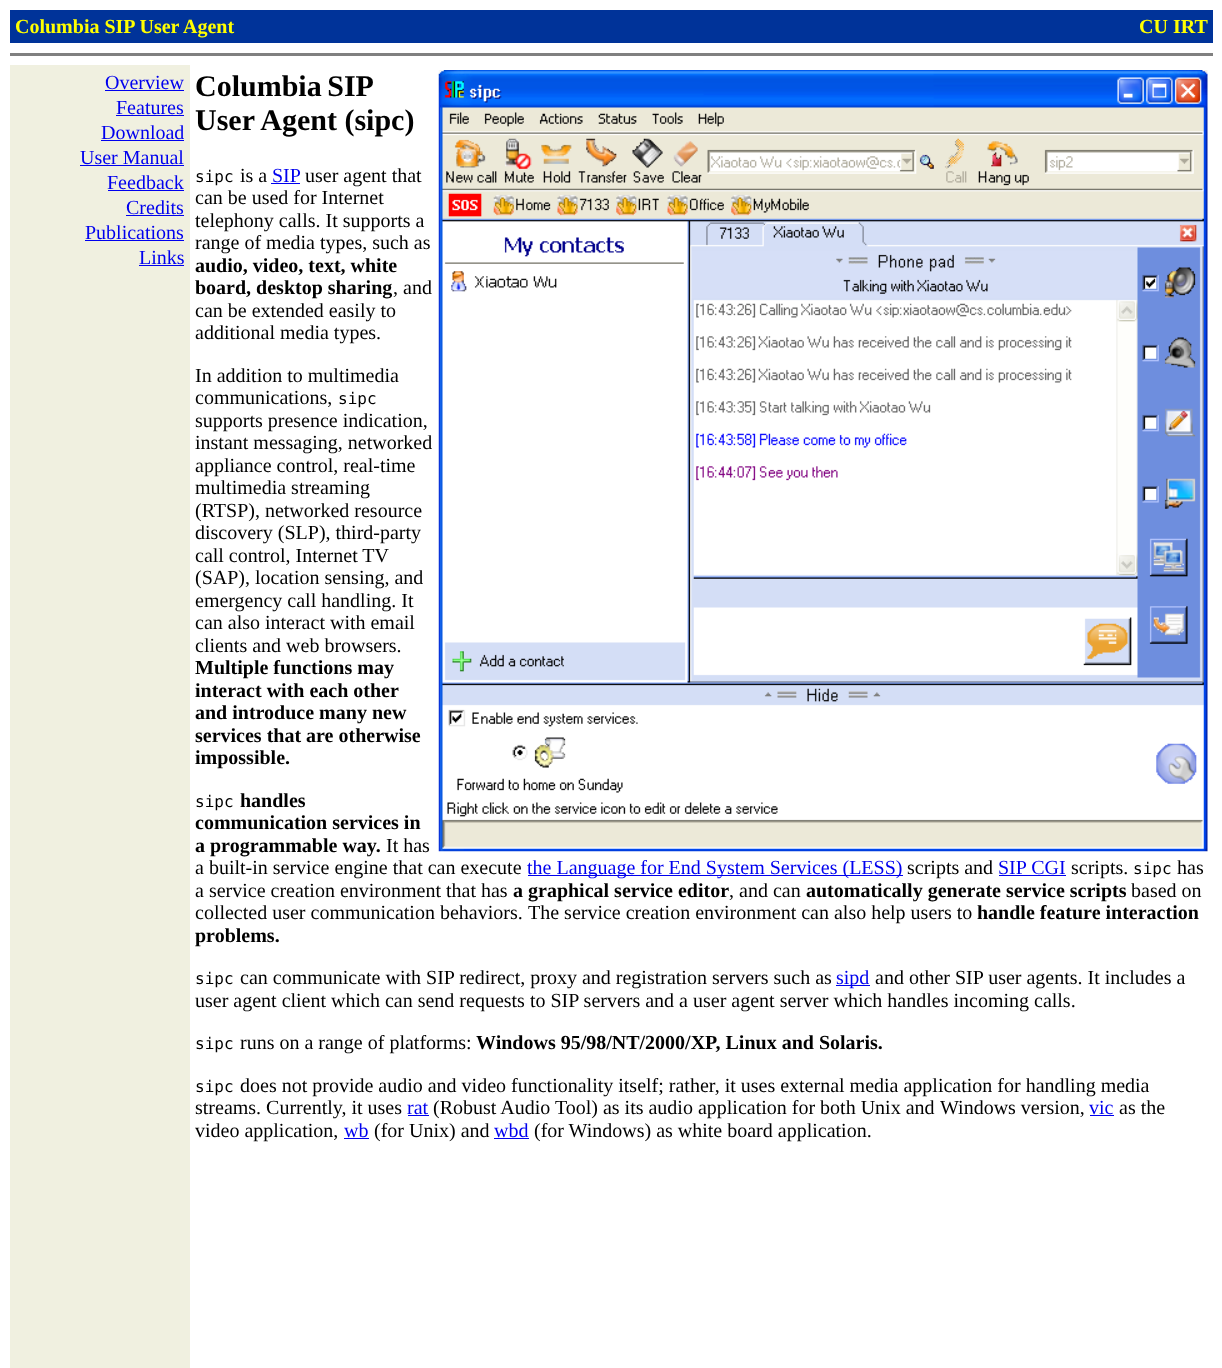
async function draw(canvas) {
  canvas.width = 1222
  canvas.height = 1368
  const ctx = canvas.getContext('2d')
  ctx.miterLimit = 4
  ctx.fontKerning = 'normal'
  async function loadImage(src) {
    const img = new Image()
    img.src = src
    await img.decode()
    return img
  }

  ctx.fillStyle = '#fff'
  ctx.fillRect(0, 0, 1222, 1368)
  ctx.fillStyle = '#039'
  ctx.fillRect(10, 10, 1203, 33)
  ctx.font = 'bold 20px Liberation Serif'
  ctx.fillStyle = '#ff0'
  ctx.fillText('Columbia SIP User Agent', 15, 33)
  ctx.fillText('CU IRT', 1139, 33)
  ctx.fillStyle = '#808080'
  ctx.fillRect(10, 53, 1203, 3)
  ctx.fillStyle = '#f0f0e0'
  ctx.fillRect(10, 65, 180, 1303)
  ctx.font = '20px Liberation Serif'
  ctx.fillStyle = '#00e'
  ctx.fillText('Overview', 105, 89)
  ctx.fillRect(105, 90, 79, 1)
  ctx.fillText('Features', 116, 114)
  ctx.fillRect(116, 115, 68, 1)
  ctx.fillText('Download', 101, 139)
  ctx.fillRect(101, 140, 83, 1)
  ctx.fillText('User Manual', 80, 164)
  ctx.fillRect(80, 165, 104, 1)
  ctx.fillText('Feedback', 107, 189)
  ctx.fillRect(108, 190, 76, 1)
  ctx.fillText('Credits', 126, 214)
  ctx.fillRect(126, 215, 58, 1)
  ctx.fillText('Publications', 85, 239)
  ctx.fillRect(85, 240, 99, 1)
  ctx.fillText('Links', 139, 264)
  ctx.fillRect(139, 265, 45, 1)
  ctx.wordSpacing = '-2px'
  ctx.font = 'bold 30px Liberation Serif'
  ctx.fillStyle = '#000'
  ctx.fillText('Columbia SIP', 195, 96)
  ctx.wordSpacing = '0px'
  ctx.fillText('User Agent (sipc)', 195, 130)
  ctx.drawImage(await loadImage('image0.png'), 438, 70, 770, 782)
  ctx.font = '16px DejaVu Sans Mono'
  ctx.fillText('sipc', 195, 182)
  ctx.font = '20px Liberation Serif'
  ctx.fillText('is a', 240, 182)
  ctx.fillStyle = '#00e'
  ctx.fillText('SIP', 272, 182)
  ctx.fillRect(271, 183, 29, 1)
  ctx.fillStyle = '#000'
  ctx.fillText('user agent that', 305, 182)
  ctx.fillText('can be used for Internet', 195, 204)
  ctx.fillText('telephony calls. It supports a', 195, 227)
  ctx.fillText('range of media types, such as', 195, 249)
  ctx.font = 'bold 20px Liberation Serif'
  ctx.fillText('audio, video, text, white', 195, 272)
  ctx.fillText('board, desktop sharing', 195, 294)
  ctx.font = '20px Liberation Serif'
  ctx.fillText(', and', 393, 294)
  ctx.fillText('can be extended easily to', 195, 317)
  ctx.fillText('additional media types.', 195, 339)
  ctx.fillText('In addition to multimedia', 195, 382)
  ctx.fillText('communications,', 195, 404)
  ctx.font = '16px DejaVu Sans Mono'
  ctx.fillText('sipc', 338, 404)
  ctx.font = '20px Liberation Serif'
  ctx.fillText('supports presence indication,', 195, 427)
  ctx.fillText('instant messaging, networked', 195, 449)
  ctx.fillText('appliance control, real-time', 195, 472)
  ctx.fillText('multimedia streaming', 195, 494)
  ctx.fillText('(RTSP), networked resource', 195, 517)
  ctx.fillText('discovery (SLP), third-party', 195, 539)
  ctx.fillText('call control, Internet TV', 195, 562)
  ctx.fillText('(SAP), location sensing, and', 195, 584)
  ctx.fillText('emergency call handling. It', 195, 607)
  ctx.fillText('can also interact with email', 195, 629)
  ctx.fillText('clients and web browsers.', 195, 652)
  ctx.font = 'bold 20px Liberation Serif'
  ctx.fillText('Multiple functions may', 195, 674)
  ctx.fillText('interact with each other', 195, 697)
  ctx.fillText('and introduce many new', 195, 719)
  ctx.fillText('services that are otherwise', 195, 742)
  ctx.fillText('impossible.', 195, 764)
  ctx.font = '16px DejaVu Sans Mono'
  ctx.fillText('sipc', 195, 807)
  ctx.font = 'bold 20px Liberation Serif'
  ctx.fillText('handles', 240, 807)
  ctx.fillText('communication services in', 195, 829)
  ctx.fillText('a programmable way.', 195, 852)
  ctx.font = '20px Liberation Serif'
  ctx.fillText('It has', 386, 852)
  ctx.fillText('a built-in service engine that can execute', 195, 874)
  ctx.fillStyle = '#00e'
  ctx.fillRect(528, 875, 375, 1)
  ctx.fillText('the Language for End System Services (LESS)', 527, 874)
  ctx.fillStyle = '#000'
  ctx.fillText('scripts and', 907, 874)
  ctx.fillStyle = '#00e'
  ctx.fillText('SIP CGI', 998, 874)
  ctx.fillRect(999, 875, 67, 1)
  ctx.fillStyle = '#000'
  ctx.fillText('scripts.', 1071, 874)
  ctx.font = '16px DejaVu Sans Mono'
  ctx.fillText('sipc', 1133, 874)
  ctx.font = '20px Liberation Serif'
  ctx.fillText('has', 1177, 874)
  ctx.fillText('a service creation environment that has', 195, 897)
  ctx.font = 'bold 20px Liberation Serif'
  ctx.fillText('a graphical service editor', 513, 897)
  ctx.font = '20px Liberation Serif'
  ctx.fillText(', and can', 729, 897)
  ctx.font = 'bold 20px Liberation Serif'
  ctx.fillText('automatically generate service scripts', 806, 897)
  ctx.font = '20px Liberation Serif'
  ctx.fillText('based on', 1131, 897)
  ctx.fillText('collected user communication behaviors.', 195, 919)
  ctx.fillText('The service creation environment can also help users to', 528, 919)
  ctx.font = 'bold 20px Liberation Serif'
  ctx.fillText('handle feature interaction', 977, 919)
  ctx.fillText('problems.', 195, 942)
  ctx.font = '16px DejaVu Sans Mono'
  ctx.fillText('sipc', 195, 984)
  ctx.font = '20px Liberation Serif'
  ctx.fillText('can communicate with SIP redirect, proxy and registration servers such as', 240, 984)
  ctx.fillStyle = '#00e'
  ctx.fillRect(836, 985, 34, 1)
  ctx.fillText('sipd', 836, 984)
  ctx.fillStyle = '#000'
  ctx.fillText('and other SIP user agents. It includes a', 875, 984)
  ctx.fillText('user agent client which can send requests to SIP servers and a user agent server which handles incoming calls.', 195, 1007)
  ctx.font = '16px DejaVu Sans Mono'
  ctx.fillText('sipc', 195, 1049)
  ctx.font = '20px Liberation Serif'
  ctx.fillText('runs on a range of platforms:', 240, 1049)
  ctx.font = 'bold 20px Liberation Serif'
  ctx.fillText('Windows 95/98/NT/2000/XP, Linux and Solaris.', 476, 1049)
  ctx.font = '16px DejaVu Sans Mono'
  ctx.fillText('sipc', 195, 1092)
  ctx.font = '20px Liberation Serif'
  ctx.fillText('does not provide audio and video functionality itself; rather, it uses external media application for handling media', 240, 1092)
  ctx.fillText('streams. Currently, it uses', 195, 1114)
  ctx.fillStyle = '#00e'
  ctx.fillText('rat', 407, 1114)
  ctx.fillRect(408, 1115, 21, 1)
  ctx.fillStyle = '#000'
  ctx.fillText('(Robust Audio Tool) as its audio application for both Unix and', 433, 1114)
  ctx.fillText('Windows version,', 940, 1114)
  ctx.fillStyle = '#00e'
  ctx.fillText('vic', 1089, 1114)
  ctx.fillRect(1090, 1115, 24, 1)
  ctx.fillStyle = '#000'
  ctx.fillText('as the', 1119, 1114)
  ctx.fillText('video application,', 195, 1137)
  ctx.fillStyle = '#00e'
  ctx.fillText('wb', 344, 1137)
  ctx.fillRect(344, 1138, 25, 1)
  ctx.fillStyle = '#000'
  ctx.fillText('(for Unix) and', 374, 1137)
  ctx.fillStyle = '#00e'
  ctx.fillText('wbd', 494, 1137)
  ctx.fillRect(494, 1138, 35, 1)
  ctx.fillStyle = '#000'
  ctx.fillText('(for Windows) as white board application.', 534, 1137)
}

draw(document.querySelector('canvas'))
